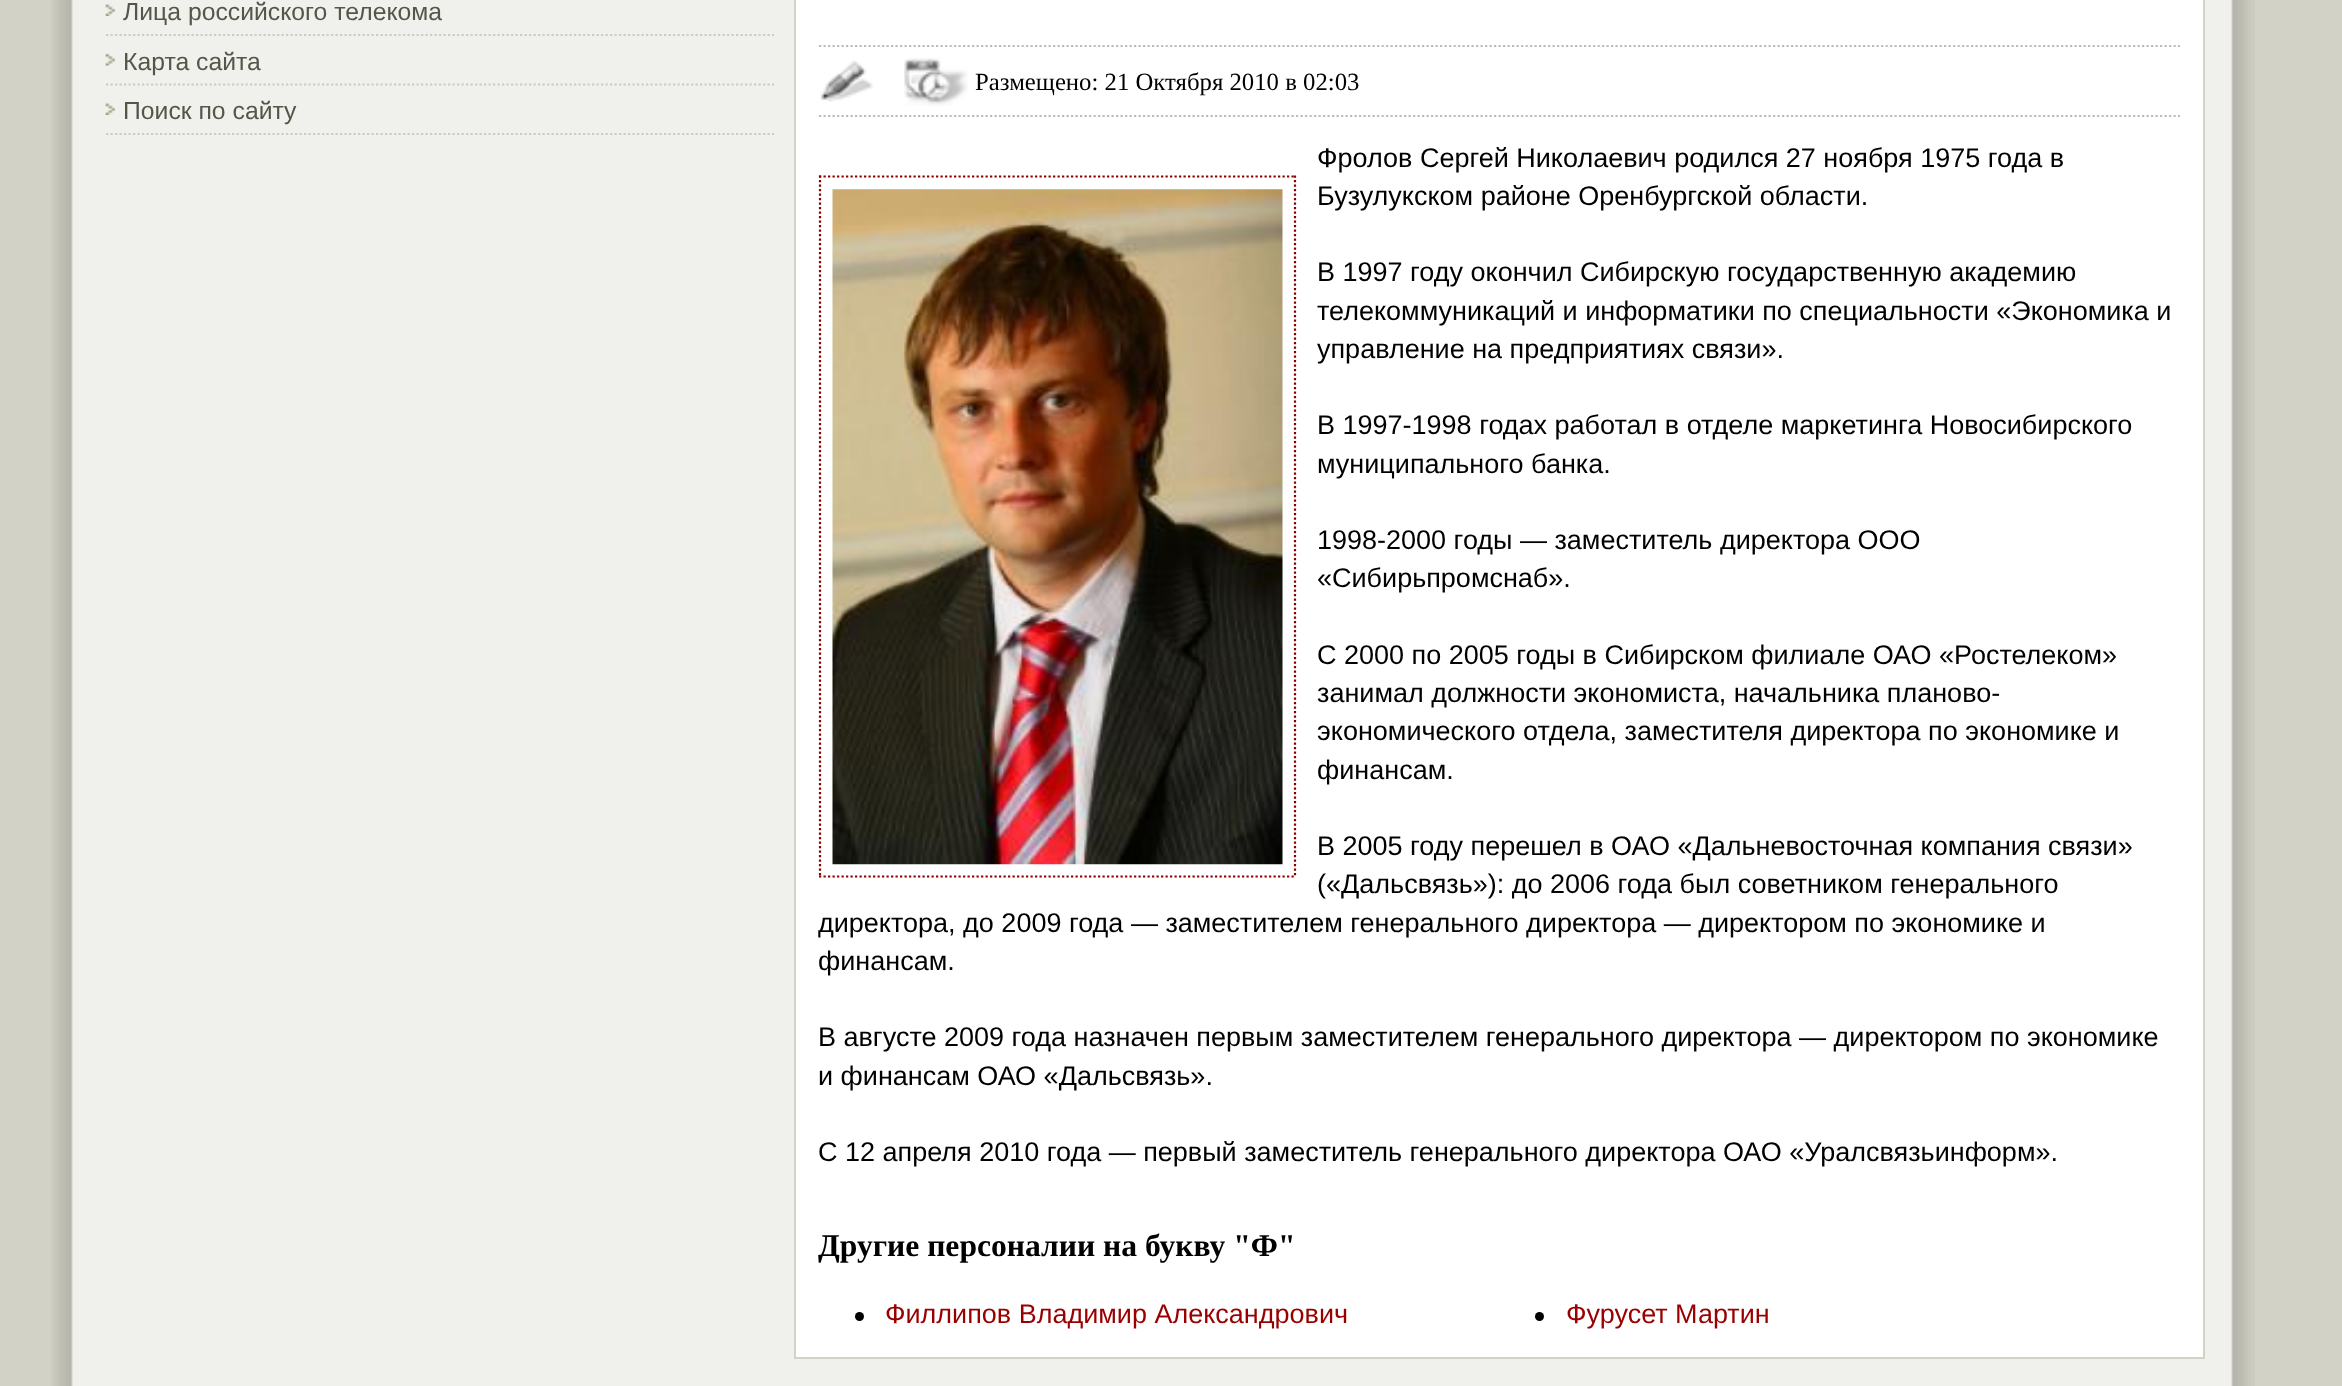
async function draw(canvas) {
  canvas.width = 2342
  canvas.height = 1386
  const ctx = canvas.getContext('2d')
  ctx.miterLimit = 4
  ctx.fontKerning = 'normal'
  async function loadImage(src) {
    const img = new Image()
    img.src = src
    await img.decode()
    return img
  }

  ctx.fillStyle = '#d2d2c6'
  ctx.fillRect(0, 0, 2342, 1386)
  ctx.drawImage(await loadImage('image0.png'), 51, 0, 2204, 1386)
  ctx.drawImage(await loadImage('image1.png'), 105, 4, 10, 12)
  ctx.beginPath()
  ctx.moveTo(106, 35)
  ctx.lineTo(774, 35)
  ctx.strokeStyle = '#ccccc6'
  ctx.lineWidth = 2.2
  ctx.setLineDash([2.25, 2.25])
  ctx.stroke()
  ctx.font = '24.75px Liberation Sans'
  ctx.fillStyle = '#55554a'
  ctx.fillText('Лица российского телекома', 123, 20)
  ctx.drawImage(await loadImage('image2.png'), 105, 53, 10, 13)
  ctx.beginPath()
  ctx.moveTo(106, 84.5)
  ctx.lineTo(774, 84.5)
  ctx.stroke()
  ctx.fillText('Карта сайта', 123, 70)
  ctx.drawImage(await loadImage('image1.png'), 105, 103, 10, 12)
  ctx.beginPath()
  ctx.moveTo(106, 134)
  ctx.lineTo(774, 134)
  ctx.stroke()
  ctx.fillText('Поиск по сайту', 123, 119)
  ctx.fillStyle = '#fff'
  ctx.beginPath()
  ctx.rect(795, -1, 1409, 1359)
  ctx.fill()
  ctx.strokeStyle = '#d2d2c6'
  ctx.lineWidth = 2
  ctx.setLineDash([])
  ctx.stroke()
  ctx.beginPath()
  ctx.moveTo(819, 46)
  ctx.lineTo(2180, 46)
  ctx.strokeStyle = '#bdbdb3'
  ctx.lineWidth = 2.2
  ctx.setLineDash([2.25, 2.25])
  ctx.stroke()
  ctx.beginPath()
  ctx.moveTo(819, 116)
  ctx.lineTo(2180, 116)
  ctx.stroke()
  ctx.drawImage(await loadImage('image3.png'), 820, 60, 53, 42)
  ctx.drawImage(await loadImage('image4.png'), 904, 58, 64, 48)
  ctx.font = '24.75px Liberation Serif'
  ctx.fillStyle = '#000'
  ctx.fillText('Размещено: 21 Октября 2010 в 02:03', 975, 90)
  ctx.font = '27px Liberation Sans'
  ctx.fillText('Фролов Сергей Николаевич родился 27 ноября 1975 года в', 1317, 167)
  ctx.beginPath()
  ctx.moveTo(819, 176.5)
  ctx.lineTo(1296, 176.5)
  ctx.strokeStyle = '#8a0000'
  ctx.stroke()
  ctx.beginPath()
  ctx.moveTo(1295, 175.5)
  ctx.lineTo(1295, 877.5)
  ctx.stroke()
  ctx.beginPath()
  ctx.moveTo(819, 876.5)
  ctx.lineTo(1296, 876.5)
  ctx.stroke()
  ctx.beginPath()
  ctx.moveTo(820, 175.5)
  ctx.lineTo(820, 877.5)
  ctx.stroke()
  ctx.drawImage(await loadImage('image5.png'), 832, 189, 451, 676)
  ctx.fillText('Бузулукском районе Оренбургской области.', 1317, 205)
  ctx.fillText('В 1997 году окончил Сибирскую государственную академию', 1317, 281)
  ctx.fillText('телекоммуникаций и информатики по специальности «Экономика и', 1317, 320)
  ctx.fillText('управление на предприятиях связи».', 1317, 358)
  ctx.fillText('В 1997-1998 годах работал в отделе маркетинга Новосибирского', 1317, 434)
  ctx.fillText('муниципального банка.', 1317, 473)
  ctx.fillText('1998-2000 годы — заместитель директора ООО', 1317, 549)
  ctx.fillText('«Сибирьпромснаб».', 1317, 587)
  ctx.fillText('С 2000 по 2005 годы в Сибирском филиале ОАО «Ростелеком»', 1317, 664)
  ctx.fillText('занимал должности экономиста, начальника планово-', 1317, 702)
  ctx.fillText('экономического отдела, заместителя директора по экономике и', 1317, 740)
  ctx.fillText('финансам.', 1317, 779)
  ctx.fillText('В 2005 году перешел в ОАО «Дальневосточная компания связи»', 1317, 855)
  ctx.fillText('(«Дальсвязь»): до 2006 года был советником генерального', 1317, 893)
  ctx.fillText('директора, до 2009 года — заместителем генерального директора — директором по экономике и', 818, 932)
  ctx.fillText('финансам.', 818, 970)
  ctx.fillText('В августе 2009 года назначен первым заместителем генерального директора — директором по экономике', 818, 1046)
  ctx.fillText('и финансам ОАО «Дальсвязь».', 818, 1085)
  ctx.fillText('С 12 апреля 2010 года — первый заместитель генерального директора ОАО «Уралсвязьинформ».', 818, 1161)
  ctx.font = 'bold 31.6px Liberation Serif'
  ctx.fillText('Другие персоналии на букву "Ф"', 818, 1256)
  ctx.beginPath()
  ctx.arc(859.5, 1316.5, 4.5, 0, 2 * Math.PI)
  ctx.fill()
  ctx.font = '27px Liberation Sans'
  ctx.fillStyle = '#900'
  ctx.fillText('Филлипов Владимир Александрович', 885, 1323)
  ctx.fillStyle = '#000'
  ctx.beginPath()
  ctx.arc(1539.5, 1316.5, 4.5, 0, 2 * Math.PI)
  ctx.fill()
  ctx.fillStyle = '#900'
  ctx.fillText('Фурусет Мартин', 1566, 1323)
}

draw(document.querySelector('canvas'))
